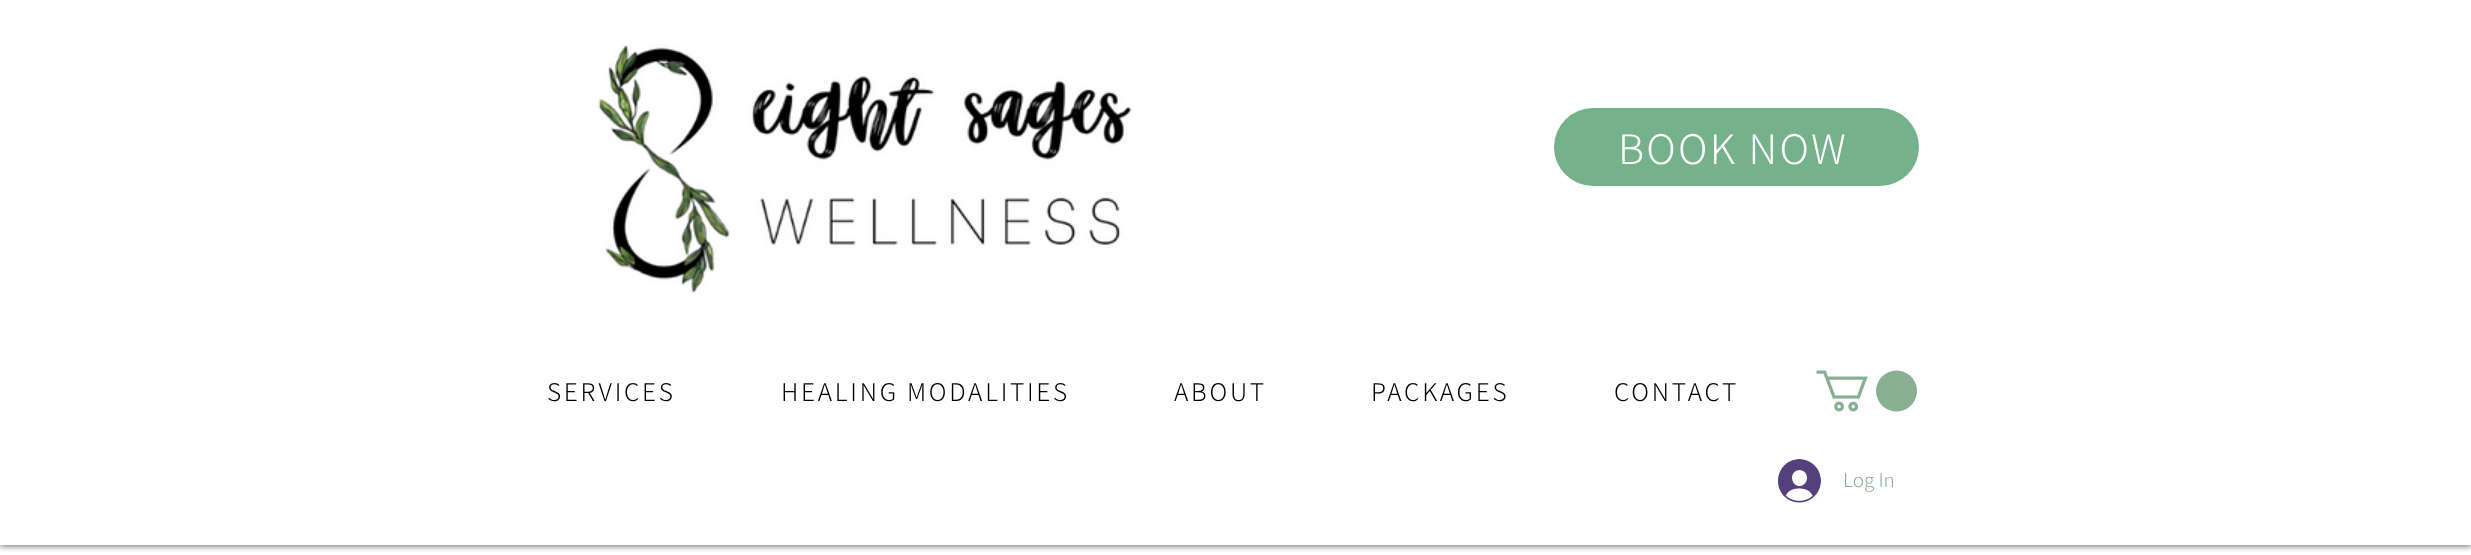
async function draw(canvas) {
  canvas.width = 2471
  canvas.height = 555
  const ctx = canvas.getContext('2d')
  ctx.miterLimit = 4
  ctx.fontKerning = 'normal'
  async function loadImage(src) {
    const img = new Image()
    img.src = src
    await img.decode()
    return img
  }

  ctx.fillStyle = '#fff'
  ctx.fillRect(0, 0, 2471, 555)
  ctx.fillStyle = '#00000099'
  ctx.filter = 'blur(3px)'
  ctx.beginPath()
  ctx.rect(0, 2, 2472, 544)
  ctx.fill()
  ctx.filter = 'none'
  ctx.fillStyle = '#fff'
  ctx.fillRect(0, 0, 2471, 545)
  ctx.drawImage(await loadImage('image0.png'), 598, 44, 534, 249)
  ctx.fillStyle = '#75b28c'
  ctx.beginPath()
  ctx.roundRect(1554, 108, 365, 78, 39)
  ctx.fill()
  ctx.letterSpacing = '2.25px'
  ctx.font = '300 45px Assistant'
  ctx.fillStyle = '#fff'
  ctx.fillText('BOOK NOW', 1618, 164)
  ctx.letterSpacing = '2.75px'
  ctx.font = '300 27px Assistant'
  ctx.fillStyle = '#000'
  ctx.fillText('SERVICES', 547, 401)
  ctx.fillText('HEALING MODALITIES', 781, 401)
  ctx.fillText('ABOUT', 1174, 401)
  ctx.fillText('PACKAGES', 1371, 401)
  ctx.fillText('CONTACT', 1614, 401)
  ctx.drawImage(await loadImage('image1.png'), 1816, 370, 101, 42)
  ctx.drawImage(await loadImage('image2.png'), 1778, 459, 43, 44)
  ctx.letterSpacing = '0px'
  ctx.font = '300 21px Assistant'
  ctx.fillStyle = '#87b093'
  ctx.fillText('Log In', 1843, 487)
}

draw(document.querySelector('canvas'))
